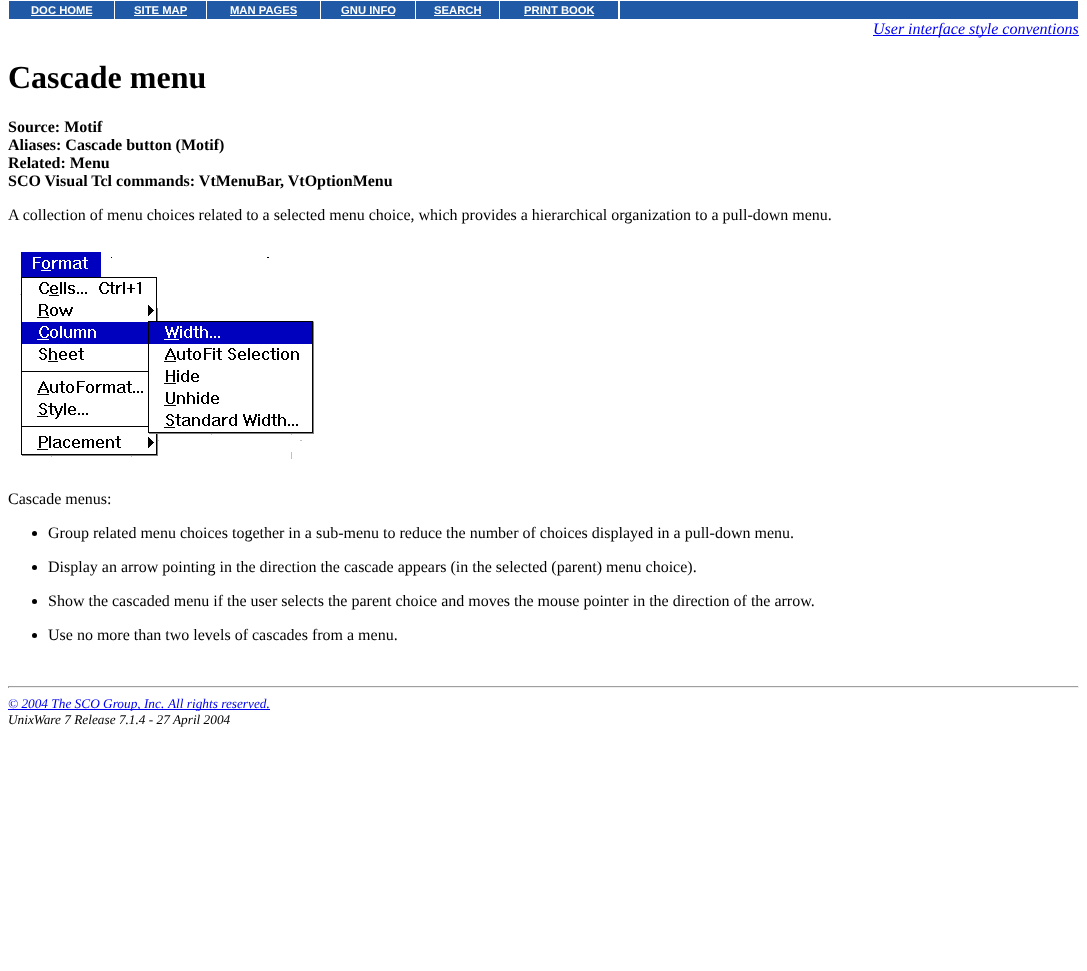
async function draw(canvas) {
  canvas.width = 1087
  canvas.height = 971
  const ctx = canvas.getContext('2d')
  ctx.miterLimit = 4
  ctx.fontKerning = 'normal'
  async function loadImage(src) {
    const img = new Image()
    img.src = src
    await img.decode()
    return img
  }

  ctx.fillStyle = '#fff'
  ctx.fillRect(0, 0, 1087, 971)
  ctx.fillStyle = '#2059a6'
  ctx.fillRect(9, 1, 105, 18)
  ctx.font = 'bold 11.25px Liberation Sans'
  ctx.fillStyle = '#fff'
  ctx.fillText('DOC HOME', 31, 14)
  ctx.fillRect(31, 15, 61, 1)
  ctx.fillStyle = '#2059a6'
  ctx.fillRect(115, 1, 91, 18)
  ctx.fillStyle = '#fff'
  ctx.fillText('SITE MAP', 134, 14)
  ctx.fillRect(134, 15, 53, 1)
  ctx.fillStyle = '#2059a6'
  ctx.fillRect(207, 1, 113, 18)
  ctx.fillStyle = '#fff'
  ctx.fillText('MAN PAGES', 230, 14)
  ctx.fillRect(230, 15, 67, 1)
  ctx.fillStyle = '#2059a6'
  ctx.fillRect(321, 1, 94, 18)
  ctx.fillStyle = '#fff'
  ctx.fillText('GNU INFO', 341, 14)
  ctx.fillRect(341, 15, 54, 1)
  ctx.fillStyle = '#2059a6'
  ctx.fillRect(416, 1, 83, 18)
  ctx.fillStyle = '#fff'
  ctx.fillText('SEARCH', 434, 14)
  ctx.fillRect(434, 15, 47, 1)
  ctx.fillStyle = '#2059a6'
  ctx.fillRect(500, 1, 118, 18)
  ctx.fillStyle = '#fff'
  ctx.fillText('PRINT BOOK', 524, 14)
  ctx.fillRect(524, 15, 70, 1)
  ctx.fillStyle = '#2059a6'
  ctx.fillRect(620, 1, 458, 18)
  ctx.fillStyle = '#00e'
  ctx.fillRect(873, 35, 206, 1)
  ctx.font = 'italic 16px Liberation Serif'
  ctx.fillText('User interface style conventions', 873, 34)
  ctx.font = 'bold 32px Liberation Serif'
  ctx.fillStyle = '#000'
  ctx.fillText('Cascade menu', 8, 88)
  ctx.font = 'bold 16px Liberation Serif'
  ctx.fillText('Source: Motif', 8, 132)
  ctx.fillText('Aliases: Cascade button (Motif)', 8, 150)
  ctx.fillText('Related: Menu', 8, 168)
  ctx.fillText('SCO Visual Tcl commands: VtMenuBar, VtOptionMenu', 8, 186)
  ctx.font = '16px Liberation Serif'
  ctx.fillText('A collection of menu choices related to a selected menu choice, which provides a hierarchical organization to a pull-down menu.', 8, 220)
  ctx.drawImage(await loadImage('image0.png'), 20, 252, 294, 207)
  ctx.fillText('Cascade menus:', 8, 504)
  ctx.beginPath()
  ctx.arc(34.5, 533.5, 2.5, 0, 2 * Math.PI)
  ctx.fill()
  ctx.fillText('Group related menu choices together in a sub-menu to reduce the number of choices displayed in a pull-down menu.', 48, 538)
  ctx.beginPath()
  ctx.arc(34.5, 567.5, 2.5, 0, 2 * Math.PI)
  ctx.fill()
  ctx.fillText('Display an arrow pointing in the direction the cascade appears (in the selected (parent) menu choice).', 48, 572)
  ctx.beginPath()
  ctx.arc(34.5, 601.5, 2.5, 0, 2 * Math.PI)
  ctx.fill()
  ctx.fillText('Show the cascaded menu if the user selects the parent choice and moves the mouse pointer in the direction of the arrow.', 48, 606)
  ctx.beginPath()
  ctx.arc(34.5, 635.5, 2.5, 0, 2 * Math.PI)
  ctx.fill()
  ctx.fillText('Use no more than two levels of cascades from a menu.', 48, 640)
  ctx.fillStyle = '#9f9f9f'
  ctx.fillRect(8, 686, 1071, 1)
  ctx.fillStyle = '#eee'
  ctx.fillRect(1078, 686, 1, 2)
  ctx.fillRect(8, 687, 1071, 1)
  ctx.fillStyle = '#9f9f9f'
  ctx.fillRect(8, 686, 1, 2)
  ctx.fillStyle = '#00e'
  ctx.fillRect(8, 709, 262, 1)
  ctx.font = 'italic 13.3px Liberation Serif'
  ctx.fillText('© 2004 The SCO Group, Inc.', 8, 708)
  ctx.fillText('All rights reserved.', 168, 708)
  ctx.fillStyle = '#000'
  ctx.fillText('UnixWare 7 Release 7.1.4 - 27 April 2004', 8, 724)
}

draw(document.querySelector('canvas'))
